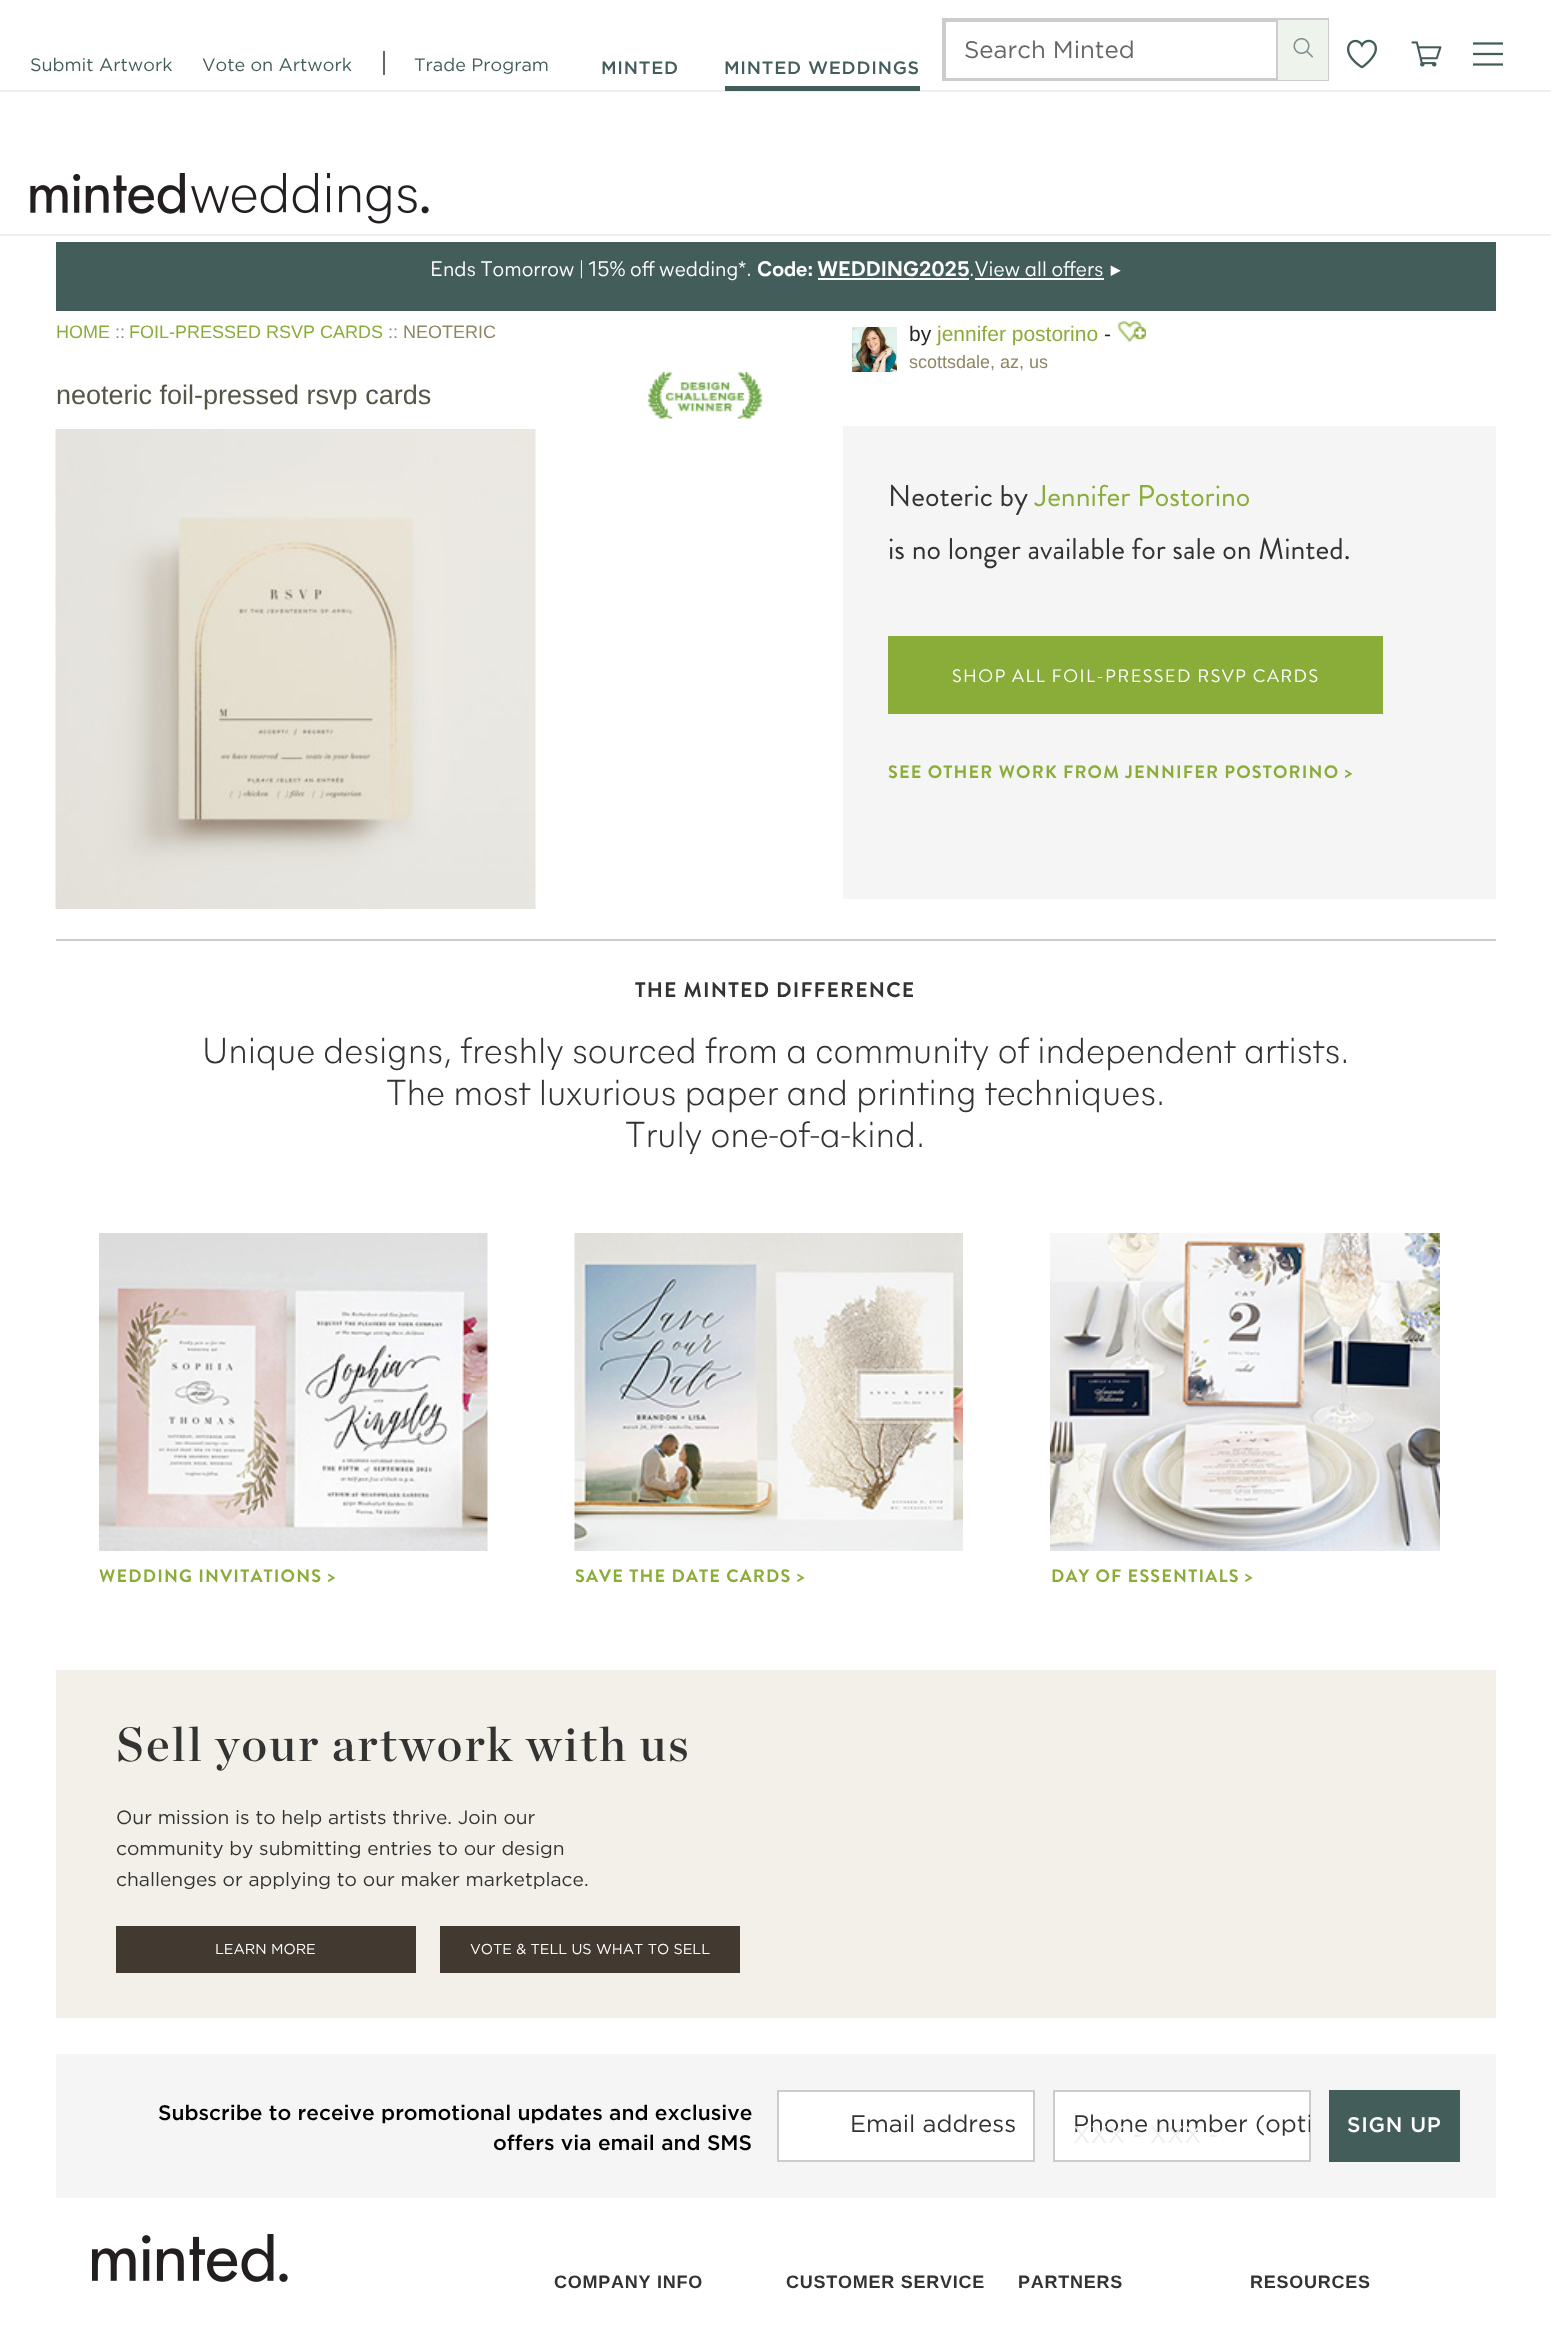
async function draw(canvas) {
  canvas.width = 1551
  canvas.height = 2329
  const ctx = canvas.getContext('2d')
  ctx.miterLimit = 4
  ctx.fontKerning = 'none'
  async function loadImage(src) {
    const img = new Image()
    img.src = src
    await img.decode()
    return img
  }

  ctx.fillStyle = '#fff'
  ctx.fillRect(0, 0, 1551, 2329)
  ctx.fillStyle = '#eee'
  ctx.fillRect(0, 234, 1551, 2)
  ctx.fillRect(0, 90, 1551, 2)
  ctx.strokeStyle = '#ccc'
  ctx.lineWidth = 2
  ctx.strokeRect(943, 19, 385, 61)
  ctx.fillStyle = '#eef3ec'
  ctx.fillRect(1278, 20, 50, 60)
  ctx.strokeRect(945, 21, 332, 58)
  ctx.font = '24px Gotham'
  ctx.fillStyle = '#666'
  ctx.fillText('Search Minted', 964, 58)
  ctx.drawImage(await loadImage('image0.png'), 1293, 38, 21, 20)
  ctx.drawImage(await loadImage('image1.png'), 1347, 39, 30, 30)
  ctx.drawImage(await loadImage('image2.png'), 1411, 41, 31, 26)
  ctx.drawImage(await loadImage('image3.png'), 1473, 42, 30, 24)
  ctx.font = '18px Gotham'
  ctx.fillStyle = '#435d5b'
  ctx.fillText('Submit Artwork', 30, 71)
  ctx.fillText('Vote on Artwork', 202, 71)
  ctx.fillStyle = '#666'
  ctx.fillRect(383, 51, 2, 24)
  ctx.fillStyle = '#435d5b'
  ctx.fillText('Trade Program', 414, 71)
  ctx.letterSpacing = '0.75px'
  ctx.font = '500 18px Gotham'
  ctx.fillText('MINTED', 601, 74)
  ctx.fillRect(725, 86, 195, 5)
  ctx.fillText('MINTED WEDDINGS', 724, 74)
  ctx.drawImage(await loadImage('image4.png'), 30, 173, 399, 51)
  ctx.fillRect(56, 242, 1440, 69)
  ctx.letterSpacing = '0px'
  ctx.font = '21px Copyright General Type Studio'
  ctx.fillStyle = '#fff'
  ctx.fillText('Ends Tomorrow | 15% off wedding*.', 430, 276)
  ctx.font = 'bold 21px Copyright General Type Studio'
  ctx.fillText('Code: WEDDING2025', 757, 276)
  ctx.fillRect(818, 278, 151, 2)
  ctx.font = '21px Copyright General Type Studio'
  ctx.fillText('.View all offers', 969, 276)
  ctx.font = '15px Copyright General Type Studio'
  ctx.fillText('▶︎', 1109, 276)
  ctx.fillRect(975, 278, 129, 2)
  ctx.font = '18px Liberation Sans'
  ctx.fillStyle = '#8aad3a'
  ctx.fillText('HOME', 56, 338)
  ctx.fillStyle = '#8e8765'
  ctx.fillText('::', 115, 338)
  ctx.fillStyle = '#8aad3a'
  ctx.fillText('FOIL-PRESSED RSVP CARDS', 129, 338)
  ctx.fillStyle = '#8e8765'
  ctx.fillText(':: NEOTERIC', 388, 338)
  ctx.font = '27px Liberation Sans'
  ctx.fillStyle = '#565547'
  ctx.fillText('neoteric foil-pressed rsvp cards', 56, 404)
  ctx.drawImage(await loadImage('image5.png'), 647, 371, 116, 48)
  ctx.drawImage(await loadImage('image6.png'), 55, 429, 481, 480)
  ctx.drawImage(await loadImage('image7.png'), 852, 327, 45, 45)
  ctx.font = '21px Liberation Sans'
  ctx.fillStyle = '#262626'
  ctx.fillText('by', 909, 341)
  ctx.fillStyle = '#8aad3a'
  ctx.fillText('jennifer postorino', 937, 341)
  ctx.fillStyle = '#262626'
  ctx.fillText('-', 1104, 341)
  ctx.drawImage(await loadImage('image8.png'), 1117, 321, 29, 21)
  ctx.font = '18px Liberation Sans'
  ctx.fillStyle = '#8e8765'
  ctx.fillText('scottsdale, az, us', 909, 368)
  ctx.fillStyle = '#f5f5f5'
  ctx.fillRect(843, 426, 653, 473)
  ctx.font = '30px Brandon Grotesque'
  ctx.fillStyle = '#333'
  ctx.fillText('Neoteric by', 888, 506)
  ctx.fillStyle = '#8aad3a'
  ctx.fillText('Jennifer Postorino', 1035, 506)
  ctx.fillStyle = '#333'
  ctx.fillText('is no longer available for sale on Minted.', 888, 559)
  ctx.fillStyle = '#8aad3a'
  ctx.fillRect(888, 636, 495, 78)
  ctx.letterSpacing = '1.45px'
  ctx.font = '18px Brandon Grotesque'
  ctx.fillStyle = '#fff'
  ctx.fillText('SHOP ALL FOIL-PRESSED RSVP CARDS', 952, 682)
  ctx.letterSpacing = '1.2px'
  ctx.font = 'bold 18px Brandon Grotesque'
  ctx.fillStyle = '#8aad3a'
  ctx.fillText('SEE OTHER WORK FROM JENNIFER POSTORINO >', 888, 778)
  ctx.fillStyle = '#ccc'
  ctx.fillRect(56, 939, 1440, 2)
  ctx.font = 'bold 21px Brandon Grotesque'
  ctx.fillStyle = '#333'
  ctx.fillText('THE MINTED DIFFERENCE', 635, 997)
  ctx.letterSpacing = '0px'
  ctx.font = '300 36px Copyright General Type Studio'
  ctx.fillText('Unique designs, freshly sourced from a community of independent artists.', 202, 1063)
  ctx.fillText('The most luxurious paper and printing techniques.', 386, 1105)
  ctx.fillText('Truly one-of-a-kind.', 625, 1147)
  ctx.drawImage(await loadImage('image9.png'), 99, 1233, 389, 318)
  ctx.letterSpacing = '1.2px'
  ctx.font = 'bold 18px Brandon Grotesque'
  ctx.fillStyle = '#8aad3a'
  ctx.fillText('WEDDING INVITATIONS >', 99, 1582)
  ctx.drawImage(await loadImage('image10.png'), 574, 1233, 389, 318)
  ctx.fillText('SAVE THE DATE CARDS >', 575, 1582)
  ctx.drawImage(await loadImage('image11.png'), 1050, 1233, 390, 318)
  ctx.fillText('DAY OF ESSENTIALS >', 1051, 1582)
  ctx.fillStyle = '#f2f0e8'
  ctx.fillRect(56, 1670, 1440, 348)
  ctx.letterSpacing = '2.3px'
  ctx.font = '600 48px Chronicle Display'
  ctx.fillStyle = '#333'
  ctx.fillText('Sell your artwork with us', 116, 1761)
  ctx.letterSpacing = '0px'
  ctx.font = '19.2px Gotham'
  ctx.fillText('Our mission is to help artists thrive. Join our', 116, 1824)
  ctx.fillText('community by submitting entries to our design', 116, 1855)
  ctx.fillText('challenges or applying to our maker marketplace.', 116, 1886)
  ctx.fillStyle = '#423931'
  ctx.fillRect(116, 1926, 300, 47)
  ctx.font = '14.4px Gotham'
  ctx.fillStyle = '#fff'
  ctx.fillText('LEARN MORE', 215, 1954)
  ctx.fillStyle = '#423931'
  ctx.fillRect(440, 1926, 300, 47)
  ctx.fillStyle = '#fff'
  ctx.fillText('VOTE & TELL US WHAT TO SELL', 470, 1954)
  ctx.fillStyle = '#f5f5f5'
  ctx.fillRect(56, 2054, 1440, 144)
  ctx.font = '500 21px Gotham'
  ctx.fillStyle = '#000'
  ctx.fillText('Subscribe to receive promotional updates and exclusive', 158, 2120)
  ctx.fillText('offers via email and SMS', 493, 2150)
  ctx.fillStyle = '#fff'
  ctx.beginPath()
  ctx.rect(778, 2091, 256, 70)
  ctx.fill()
  ctx.stroke()
  ctx.font = '24px Gotham'
  ctx.fillStyle = '#333'
  ctx.fillText('Email address', 850, 2132)
  ctx.fillStyle = '#fff'
  ctx.beginPath()
  ctx.rect(1054, 2091, 256, 70)
  ctx.fill()
  ctx.stroke()
  ctx.save()
  ctx.beginPath()
  ctx.rect(1055, 2091, 255, 69)
  ctx.clip()
  ctx.fillStyle = '#333'
  ctx.fillText('Phone number (opti', 1073, 2132)
  ctx.restore()
  ctx.fillStyle = '#eee'
  ctx.fillText('XXX - XXX -', 1073, 2143)
  ctx.fillStyle = '#435d5b'
  ctx.fillRect(1329, 2090, 131, 72)
  ctx.letterSpacing = '0.75px'
  ctx.font = '500 21px Gotham'
  ctx.fillStyle = '#fff'
  ctx.fillText('SIGN UP', 1347, 2132)
  ctx.drawImage(await loadImage('image12.png'), 92, 2234, 196, 48)
  ctx.font = 'bold 18px Liberation Sans'
  ctx.fillStyle = '#333'
  ctx.fillText('COMPANY INFO', 554, 2288)
  ctx.fillText('CUSTOMER SERVICE', 786, 2288)
  ctx.fillText('PARTNERS', 1018, 2288)
  ctx.fillText('RESOURCES', 1250, 2288)
}

draw(document.querySelector('canvas'))
